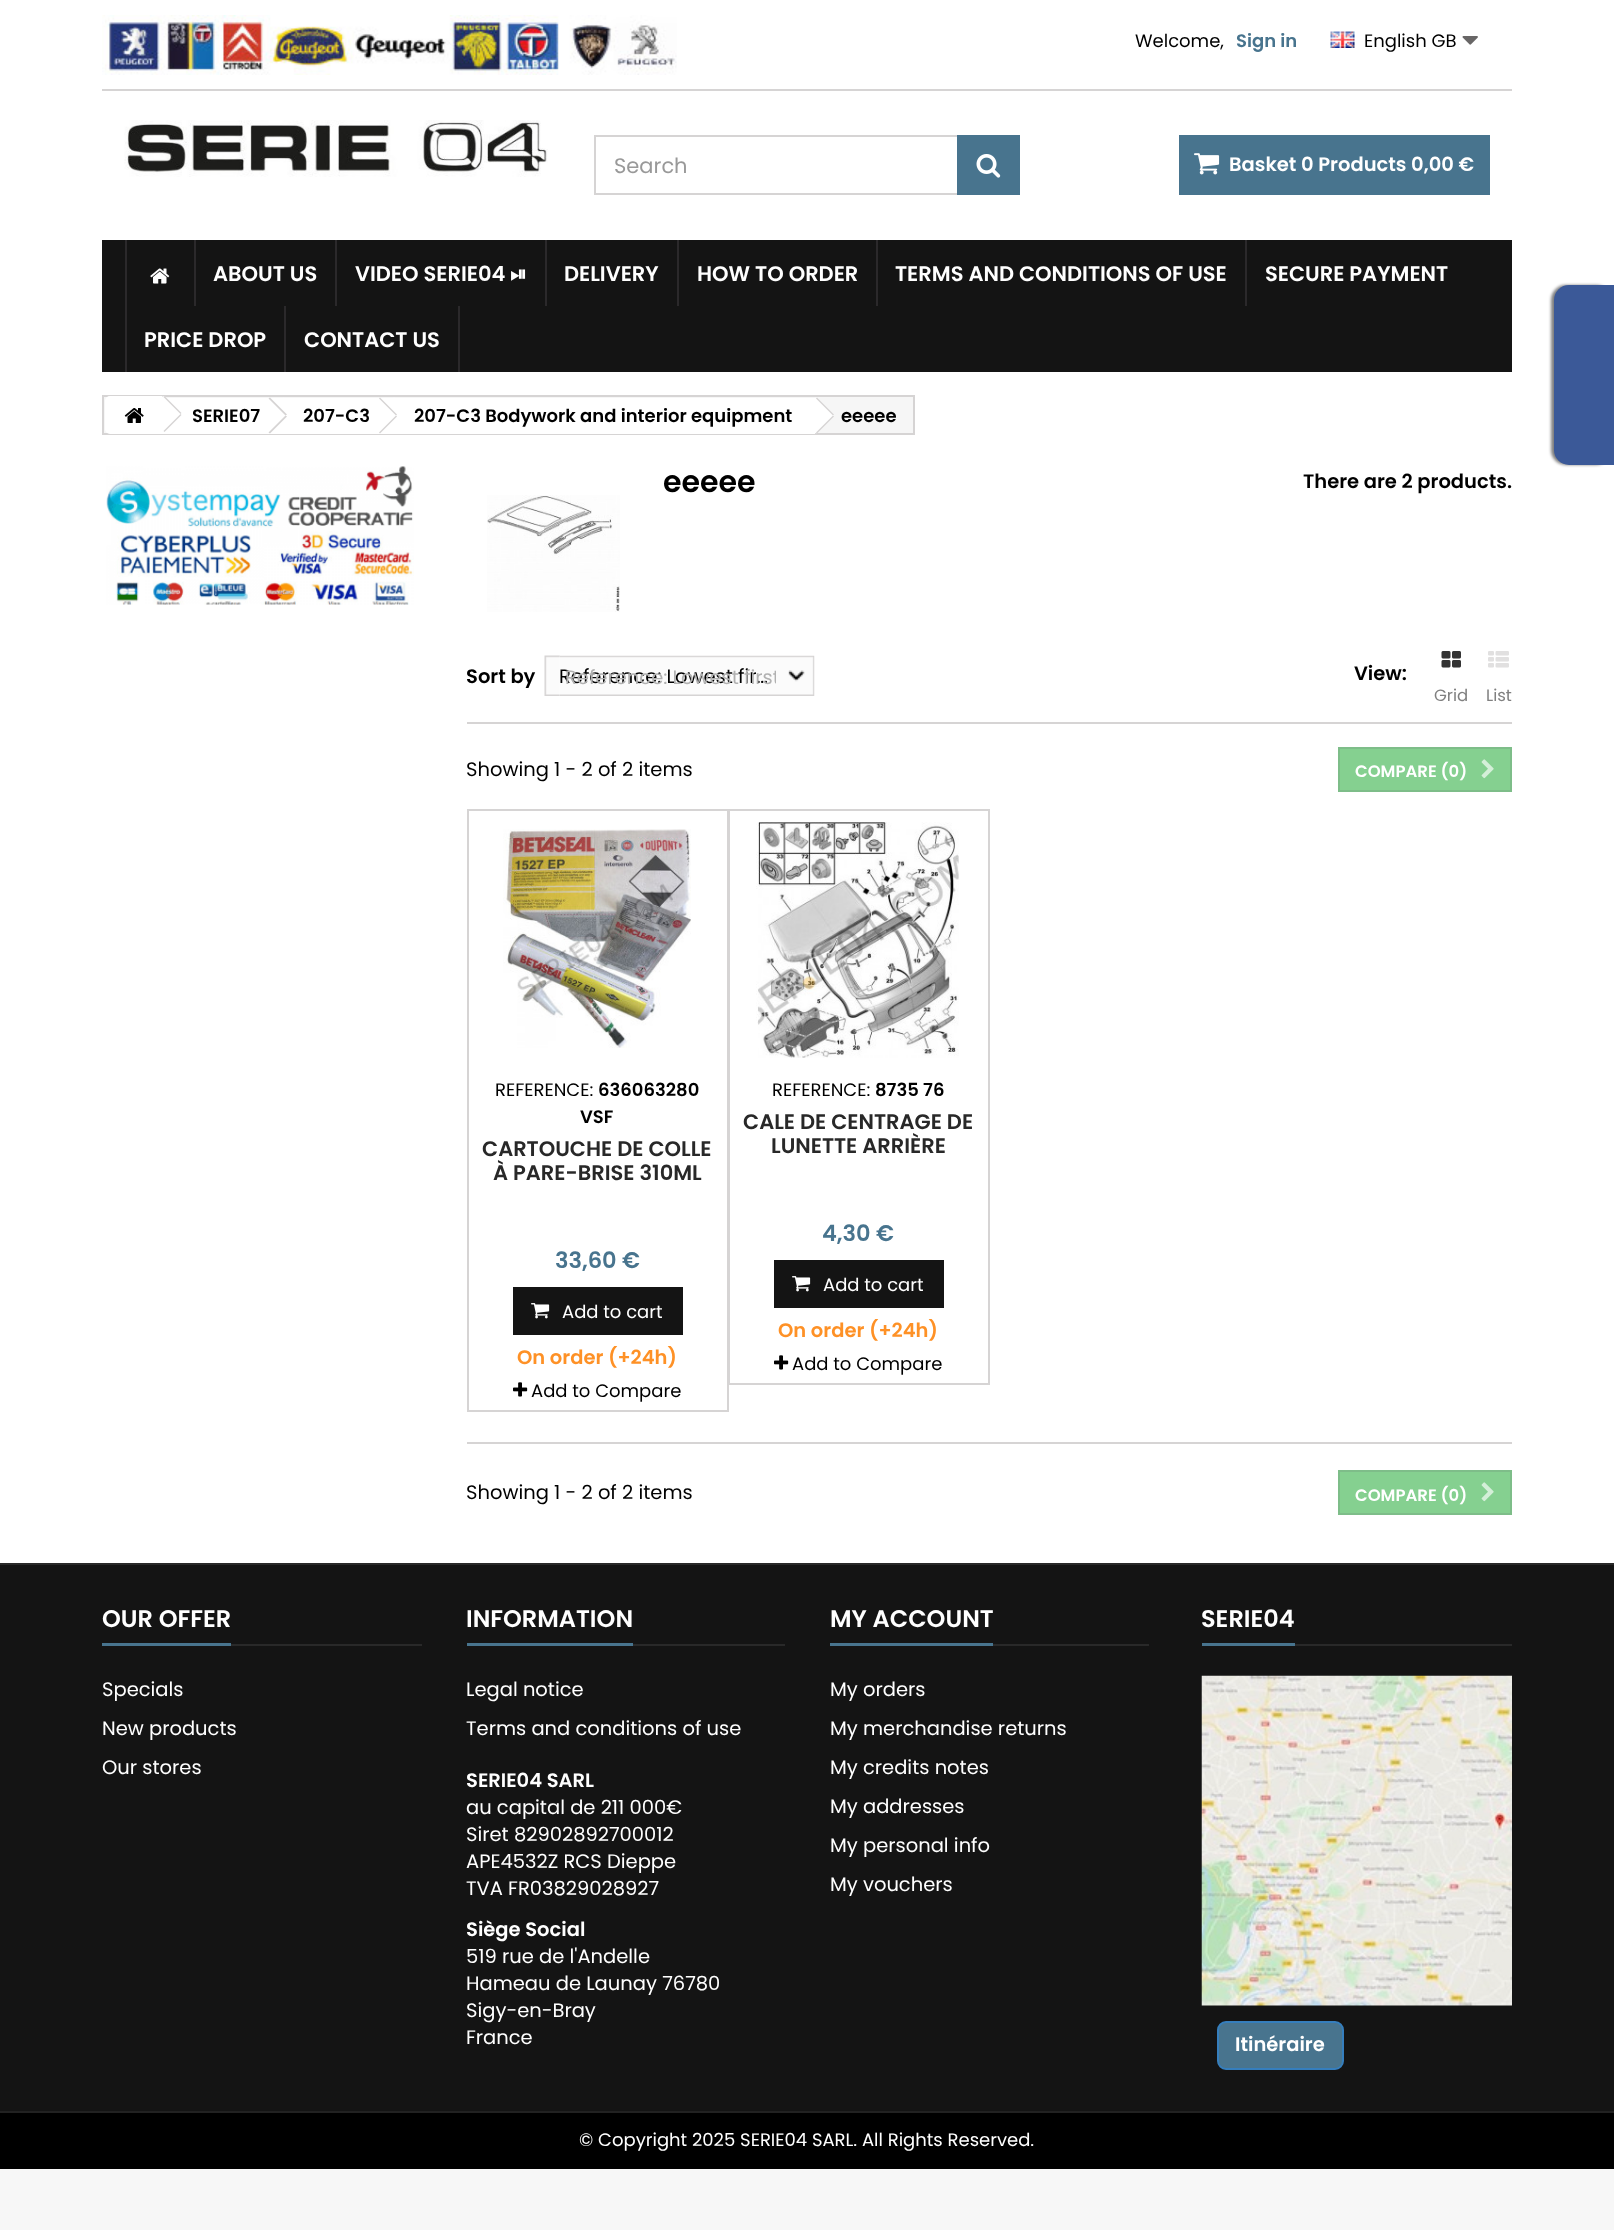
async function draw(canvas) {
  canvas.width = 1614
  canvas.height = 2230
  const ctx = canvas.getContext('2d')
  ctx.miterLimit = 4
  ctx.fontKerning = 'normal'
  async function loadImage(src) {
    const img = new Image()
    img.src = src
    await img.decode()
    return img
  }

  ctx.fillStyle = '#f7f7f7'
  ctx.fillRect(0, 0, 1614, 2230)
  ctx.fillStyle = '#fff'
  ctx.fillRect(0, 0, 1614, 1563)
  ctx.drawImage(await loadImage('image0.png'), 102, 15, 575, 60)
  ctx.fillStyle = '#d6d4d4'
  ctx.fillRect(102, 89, 1410, 2)
  ctx.font = '18px Poppins'
  ctx.fillStyle = '#000'
  ctx.fillText('Welcome,', 1135, 47)
  ctx.font = '600 18px Poppins'
  ctx.fillStyle = '#48748e'
  ctx.fillText('Sign in', 1236, 47)
  ctx.drawImage(await loadImage('image1.png'), 1330, 31, 25, 17)
  ctx.font = '18px Poppins'
  ctx.fillStyle = '#000'
  ctx.fillText('English GB', 1364, 47)
  ctx.drawImage(await loadImage('image2.png'), 1462, 36, 16, 9)
  ctx.drawImage(await loadImage('image3.png'), 124, 120, 424, 57)
  ctx.strokeStyle = '#d6d4d4'
  ctx.lineWidth = 2
  ctx.strokeRect(595, 136, 424, 58)
  ctx.font = '21px Poppins'
  ctx.fillStyle = '#999'
  ctx.fillText('Search', 614, 173)
  ctx.fillStyle = '#48748e'
  ctx.fillRect(957, 135, 63, 60)
  ctx.drawImage(await loadImage('image4.png'), 976, 154, 25, 24)
  ctx.fillRect(1179, 135, 311, 60)
  ctx.drawImage(await loadImage('image5.png'), 1194, 153, 26, 22)
  ctx.font = '600 19.5px Poppins'
  ctx.fillStyle = '#fff'
  ctx.fillText('Basket 0 Products 0,00 €', 1229, 171)
  ctx.fillStyle = '#141414'
  ctx.fillRect(102, 240, 1410, 132)
  ctx.fillStyle = '#2b292b'
  ctx.fillRect(125, 240, 2, 132)
  ctx.drawImage(await loadImage('image6.png'), 150, 268, 20, 16)
  ctx.fillRect(194, 240, 2, 66)
  ctx.font = '600 21px Poppins'
  ctx.fillStyle = '#fff'
  ctx.fillText('ABOUT US', 213, 281)
  ctx.fillStyle = '#2b292b'
  ctx.fillRect(335, 240, 2, 66)
  ctx.fillStyle = '#fff'
  ctx.fillText('VIDEO SERIE04', 355, 281)
  ctx.font = 'bold 21px FreeSans'
  ctx.fillText('⏯', 510, 281)
  ctx.fillStyle = '#2b292b'
  ctx.fillRect(545, 240, 2, 66)
  ctx.font = '600 21px Poppins'
  ctx.fillStyle = '#fff'
  ctx.fillText('DELIVERY', 564, 281)
  ctx.fillStyle = '#2b292b'
  ctx.fillRect(677, 240, 2, 66)
  ctx.fillStyle = '#fff'
  ctx.fillText('HOW TO ORDER', 697, 281)
  ctx.fillStyle = '#2b292b'
  ctx.fillRect(876, 240, 2, 66)
  ctx.fillStyle = '#fff'
  ctx.fillText('TERMS AND CONDITIONS OF USE', 895, 281)
  ctx.fillStyle = '#2b292b'
  ctx.fillRect(1245, 240, 2, 66)
  ctx.fillStyle = '#fff'
  ctx.fillText('SECURE PAYMENT', 1265, 281)
  ctx.fillText('PRICE DROP', 144, 347)
  ctx.fillStyle = '#2b292b'
  ctx.fillRect(458, 306, 2, 66)
  ctx.fillRect(284, 306, 2, 66)
  ctx.fillStyle = '#fff'
  ctx.fillText('CONTACT US', 304, 347)
  ctx.fillStyle = '#f6f6f6'
  ctx.beginPath()
  ctx.rect(103, 396, 811, 38)
  ctx.fill()
  ctx.stroke()
  ctx.fillStyle = '#fff'
  ctx.beginPath()
  ctx.roundRect(105, 396, 57, 38, [5, 0, 0, 5])
  ctx.fill()
  ctx.drawImage(await loadImage('image7.png'), 124, 408, 20, 15)
  ctx.fillRect(162, 398, 108, 36)
  ctx.beginPath()
  ctx.moveTo(165.5, 397)
  ctx.lineTo(180.5, 412)
  ctx.bezierCurveTo(181.5, 413, 181.5, 415, 180.5, 416)
  ctx.lineTo(165.5, 431)
  ctx.bezierCurveTo(164.5, 432, 162.5, 432, 161.5, 431)
  ctx.lineTo(146.5, 416)
  ctx.bezierCurveTo(145.5, 415, 145.5, 413, 146.5, 412)
  ctx.lineTo(161.5, 397)
  ctx.bezierCurveTo(162.5, 396, 164.5, 396, 165.5, 397)
  ctx.closePath()
  ctx.fill()
  ctx.fillStyle = '#d6d4d4'
  ctx.beginPath()
  ctx.moveTo(164.5, 396)
  ctx.lineTo(181.5, 413)
  ctx.lineTo(180.5, 414)
  ctx.lineTo(163.5, 397)
  ctx.closePath()
  ctx.moveTo(180.5, 414)
  ctx.lineTo(181.5, 415)
  ctx.lineTo(164.5, 432)
  ctx.lineTo(163.5, 431)
  ctx.closePath()
  ctx.fill()
  ctx.font = '600 18px Poppins'
  ctx.fillStyle = '#000'
  ctx.fillText('SERIE07', 192, 422)
  ctx.fillStyle = '#fff'
  ctx.beginPath()
  ctx.moveTo(286, 398.5)
  ctx.lineTo(300.5, 413.5)
  ctx.bezierCurveTo(302, 414.5, 302, 416.5, 300.5, 417.5)
  ctx.lineTo(286, 432.5)
  ctx.bezierCurveTo(284.5, 433.5, 283, 433.5, 281.5, 432.5)
  ctx.lineTo(267, 417.5)
  ctx.bezierCurveTo(265.5, 416.5, 265.5, 414.5, 267, 413.5)
  ctx.lineTo(281.5, 398.5)
  ctx.bezierCurveTo(283, 397.5, 284.5, 397.5, 286, 398.5)
  ctx.closePath()
  ctx.fill()
  ctx.fillRect(270, 398, 111, 36)
  ctx.fillStyle = '#d6d4d4'
  ctx.beginPath()
  ctx.moveTo(270, 397.5)
  ctx.lineTo(287, 414.5)
  ctx.lineTo(285.5, 415.5)
  ctx.lineTo(268.5, 398.5)
  ctx.closePath()
  ctx.fill()
  ctx.beginPath()
  ctx.moveTo(285.5, 415.5)
  ctx.lineTo(287, 416.5)
  ctx.lineTo(270, 433.5)
  ctx.lineTo(268.5, 432.5)
  ctx.closePath()
  ctx.fill()
  ctx.fillStyle = '#000'
  ctx.fillText('207-C3', 303, 422)
  ctx.fillStyle = '#fff'
  ctx.beginPath()
  ctx.moveTo(396.5, 398.5)
  ctx.lineTo(411, 413.5)
  ctx.bezierCurveTo(412.5, 414.5, 412.5, 416.5, 411, 417.5)
  ctx.lineTo(396.5, 432.5)
  ctx.bezierCurveTo(395, 433.5, 393, 433.5, 392, 432.5)
  ctx.lineTo(377, 417.5)
  ctx.bezierCurveTo(376, 416.5, 376, 414.5, 377, 413.5)
  ctx.lineTo(392, 398.5)
  ctx.bezierCurveTo(393, 397.5, 395, 397.5, 396.5, 398.5)
  ctx.closePath()
  ctx.fill()
  ctx.fillRect(381, 398, 434, 36)
  ctx.fillStyle = '#d6d4d4'
  ctx.beginPath()
  ctx.moveTo(380, 397.5)
  ctx.lineTo(397, 414.5)
  ctx.lineTo(396, 415.5)
  ctx.lineTo(379, 398.5)
  ctx.closePath()
  ctx.fill()
  ctx.beginPath()
  ctx.moveTo(396, 415.5)
  ctx.lineTo(397, 416.5)
  ctx.lineTo(380, 433.5)
  ctx.lineTo(379, 432.5)
  ctx.closePath()
  ctx.fill()
  ctx.fillStyle = '#000'
  ctx.fillText('207-C3 Bodywork and interior equipment', 414, 422)
  ctx.fillStyle = '#fff'
  ctx.beginPath()
  ctx.moveTo(818, 398.5)
  ctx.lineTo(833, 413.5)
  ctx.bezierCurveTo(834, 414.5, 834, 416.5, 833, 417.5)
  ctx.lineTo(818, 432.5)
  ctx.bezierCurveTo(817, 433.5, 815, 433.5, 814, 432.5)
  ctx.lineTo(799, 417.5)
  ctx.bezierCurveTo(798, 416.5, 798, 414.5, 799, 413.5)
  ctx.lineTo(814, 398.5)
  ctx.bezierCurveTo(815, 397.5, 817, 397.5, 818, 398.5)
  ctx.closePath()
  ctx.fill()
  ctx.fillStyle = '#d6d4d4'
  ctx.beginPath()
  ctx.moveTo(817, 397.5)
  ctx.lineTo(834, 414.5)
  ctx.lineTo(833, 415.5)
  ctx.lineTo(816, 398.5)
  ctx.closePath()
  ctx.fill()
  ctx.beginPath()
  ctx.moveTo(833, 415.5)
  ctx.lineTo(834, 416.5)
  ctx.lineTo(817, 433.5)
  ctx.lineTo(816, 432.5)
  ctx.closePath()
  ctx.fill()
  ctx.fillStyle = '#000'
  ctx.fillText('eeeee', 841, 422)
  ctx.fillStyle = '#00000080'
  ctx.filter = 'blur(1.5px)'
  ctx.beginPath()
  ctx.roundRect(1551, 285, 60, 180, 15)
  ctx.fill()
  ctx.filter = 'none'
  ctx.fillStyle = '#3b5998'
  ctx.beginPath()
  ctx.roundRect(1554, 285, 60, 180, [15, 0, 0, 15])
  ctx.fill()
  ctx.drawImage(await loadImage('image8.png'), 106, 466, 308, 139)
  ctx.font = '600 30px Poppins'
  ctx.fillStyle = '#000'
  ctx.fillText('eeeee', 663, 492)
  ctx.font = '600 19.5px Poppins'
  ctx.fillText('There are 2 products.', 1303, 488)
  ctx.drawImage(await loadImage('image9.png'), 487, 495, 133, 117)
  ctx.fillStyle = '#d6d4d4'
  ctx.fillRect(467, 722, 1045, 2)
  ctx.fillStyle = '#000'
  ctx.fillText('Sort by', 466, 683)
  ctx.drawImage(await loadImage('image10.png'), 544, 655, 16, 41)
  ctx.drawImage(await loadImage('image11.png'), 559, 655, 256, 41)
  ctx.font = '19.5px Poppins'
  ctx.fillText('Reference: Lowest fir…', 559, 683)
  ctx.save()
  ctx.beginPath()
  ctx.rect(566, 662, 210, 31)
  ctx.clip()
  ctx.fillStyle = '#b1b1b1'
  ctx.fillText('Reference: Lowest first', 565, 684)
  ctx.restore()
  ctx.font = '600 19.5px Poppins'
  ctx.fillText('View:', 1354, 680)
  ctx.drawImage(await loadImage('image12.png'), 1441, 651, 20, 17)
  ctx.font = '16.5px Poppins'
  ctx.fillStyle = '#808080'
  ctx.fillText('Grid', 1434, 701)
  ctx.drawImage(await loadImage('image13.png'), 1488, 651, 21, 17)
  ctx.fillText('List', 1486, 701)
  ctx.font = '19.5px Poppins'
  ctx.fillStyle = '#000'
  ctx.fillText('Showing 1 - 2 of 2 items', 466, 776)
  ctx.fillStyle = '#85d090'
  ctx.beginPath()
  ctx.rect(1339, 748, 172, 43)
  ctx.fill()
  ctx.strokeStyle = '#7ebd89'
  ctx.stroke()
  ctx.font = '600 16.5px Poppins'
  ctx.fillStyle = '#fff'
  ctx.fillText('COMPARE (0)', 1355, 777)
  ctx.drawImage(await loadImage('image14.png'), 1481, 759, 13, 20)
  ctx.strokeStyle = '#d6d4d4'
  ctx.strokeRect(468, 810, 260, 601)
  ctx.drawImage(await loadImage('image15.png'), 503, 829, 188, 219)
  ctx.font = '18px Poppins'
  ctx.fillStyle = '#000'
  ctx.fillText('REFERENCE:', 495, 1096)
  ctx.font = '600 18px Poppins'
  ctx.fillText('636063280', 598, 1096)
  ctx.fillText('VSF', 580, 1123)
  ctx.font = '600 21px Poppins'
  ctx.fillStyle = '#282828'
  ctx.fillText('CARTOUCHE DE COLLE', 482, 1156)
  ctx.fillText('À PARE-BRISE 310ML', 493, 1180)
  ctx.font = '600 22.5px Poppins'
  ctx.fillStyle = '#48748e'
  ctx.fillText('33,60 €', 555, 1268)
  ctx.fillStyle = '#141414'
  ctx.fillRect(513, 1287, 170, 48)
  ctx.drawImage(await loadImage('image16.png'), 531, 1303, 19, 16)
  ctx.font = '18px Poppins'
  ctx.fillStyle = '#fff'
  ctx.fillText('Add to cart', 562, 1318)
  ctx.font = '600 19.5px Poppins'
  ctx.fillStyle = '#fe9126'
  ctx.fillText('On order (+24h)', 517, 1364)
  ctx.drawImage(await loadImage('image17.png'), 513, 1382, 15, 15)
  ctx.font = '18px Poppins'
  ctx.fillStyle = '#000'
  ctx.fillText('Add to Compare', 531, 1397)
  ctx.strokeRect(729, 810, 260, 574)
  ctx.drawImage(await loadImage('image18.png'), 756, 822, 203, 236)
  ctx.fillText('REFERENCE:', 772, 1096)
  ctx.font = '600 18px Poppins'
  ctx.fillText('8735 76', 875, 1096)
  ctx.font = '600 21px Poppins'
  ctx.fillStyle = '#282828'
  ctx.fillText('CALE DE CENTRAGE DE', 743, 1129)
  ctx.fillText('LUNETTE ARRIÈRE', 771, 1153)
  ctx.font = '600 22.5px Poppins'
  ctx.fillStyle = '#48748e'
  ctx.fillText('4,30 €', 822, 1241)
  ctx.fillStyle = '#141414'
  ctx.fillRect(774, 1260, 170, 48)
  ctx.drawImage(await loadImage('image16.png'), 792, 1276, 19, 16)
  ctx.font = '18px Poppins'
  ctx.fillStyle = '#fff'
  ctx.fillText('Add to cart', 823, 1291)
  ctx.font = '600 19.5px Poppins'
  ctx.fillStyle = '#fe9126'
  ctx.fillText('On order (+24h)', 778, 1337)
  ctx.drawImage(await loadImage('image17.png'), 774, 1355, 15, 15)
  ctx.font = '18px Poppins'
  ctx.fillStyle = '#000'
  ctx.fillText('Add to Compare', 792, 1370)
  ctx.fillStyle = '#d6d4d4'
  ctx.fillRect(467, 1442, 1045, 2)
  ctx.font = '19.5px Poppins'
  ctx.fillStyle = '#000'
  ctx.fillText('Showing 1 - 2 of 2 items', 466, 1499)
  ctx.fillStyle = '#85d090'
  ctx.beginPath()
  ctx.rect(1339, 1471, 172, 43)
  ctx.fill()
  ctx.strokeStyle = '#7ebd89'
  ctx.stroke()
  ctx.font = '600 16.5px Poppins'
  ctx.fillStyle = '#fff'
  ctx.fillText('COMPARE (0)', 1355, 1501)
  ctx.drawImage(await loadImage('image14.png'), 1481, 1482, 13, 20)
  ctx.fillStyle = '#141414'
  ctx.fillRect(0, 1565, 1614, 546)
  ctx.fillStyle = '#292929'
  ctx.fillRect(0, 1563, 1614, 2)
  ctx.fillRect(231, 1644, 191, 2)
  ctx.fillStyle = '#48748e'
  ctx.fillRect(102, 1643, 129, 3)
  ctx.font = '600 24px Poppins'
  ctx.fillStyle = '#fff'
  ctx.fillText('OUR OFFER', 102, 1627)
  ctx.font = '19.5px Poppins'
  ctx.fillText('Specials', 102, 1696)
  ctx.fillText('New products', 102, 1735)
  ctx.fillText('Our stores', 102, 1774)
  ctx.fillStyle = '#292929'
  ctx.fillRect(633, 1644, 152, 2)
  ctx.fillStyle = '#48748e'
  ctx.fillRect(467, 1643, 166, 3)
  ctx.font = '600 24px Poppins'
  ctx.fillStyle = '#fff'
  ctx.fillText('INFORMATION', 466, 1627)
  ctx.font = '19.5px Poppins'
  ctx.fillText('Legal notice', 466, 1696)
  ctx.fillText('Terms and conditions of use', 466, 1735)
  ctx.font = '600 19.5px Poppins'
  ctx.fillText('SERIE04 SARL', 466, 1787)
  ctx.font = '19.5px Poppins'
  ctx.fillText('au capital de 211 000€', 466, 1814)
  ctx.fillText('Siret 82902892700012', 466, 1841)
  ctx.fillText('APE4532Z RCS Dieppe', 466, 1868)
  ctx.fillText('TVA FR03829028927', 466, 1895)
  ctx.font = '600 19.5px Poppins'
  ctx.fillText('Siège Social', 466, 1936)
  ctx.font = '19.5px Poppins'
  ctx.fillText('519 rue de l\'Andelle', 466, 1963)
  ctx.fillText('Hameau de Launay 76780', 466, 1990)
  ctx.fillText('Sigy-en-Bray', 466, 2017)
  ctx.fillText('France', 466, 2044)
  ctx.fillStyle = '#292929'
  ctx.fillRect(993, 1644, 156, 2)
  ctx.fillStyle = '#48748e'
  ctx.fillRect(830, 1643, 163, 3)
  ctx.font = '600 24px Poppins'
  ctx.fillStyle = '#fff'
  ctx.fillText('MY ACCOUNT', 830, 1627)
  ctx.font = '19.5px Poppins'
  ctx.fillText('My orders', 830, 1696)
  ctx.fillText('My merchandise returns', 830, 1735)
  ctx.fillText('My credits notes', 830, 1774)
  ctx.fillText('My addresses', 830, 1813)
  ctx.fillText('My personal info', 830, 1852)
  ctx.fillText('My vouchers', 830, 1891)
  ctx.fillStyle = '#292929'
  ctx.fillRect(1295, 1644, 217, 2)
  ctx.fillStyle = '#48748e'
  ctx.fillRect(1202, 1643, 93, 3)
  ctx.font = '600 24px Poppins'
  ctx.fillStyle = '#fff'
  ctx.fillText('SERIE04', 1201, 1627)
  ctx.drawImage(await loadImage('image19.png'), 1201, 1675, 311, 331)
  ctx.fillStyle = '#48748e'
  ctx.beginPath()
  ctx.roundRect(1218, 2022, 125, 47, 8)
  ctx.fill()
  ctx.strokeStyle = '#357ebd'
  ctx.stroke()
  ctx.font = '600 19.5px Poppins'
  ctx.fillStyle = '#fff'
  ctx.fillText('Itinéraire', 1235, 2051)
  ctx.fillStyle = '#000'
  ctx.fillRect(0, 2113, 1614, 56)
  ctx.fillStyle = '#222'
  ctx.fillRect(0, 2111, 1614, 2)
  ctx.font = '18px Poppins'
  ctx.fillStyle = '#fff'
  ctx.fillText('© Copyright 2025 SERIE04 SARL. All Rights Reserved.', 579, 2146)
}

draw(document.querySelector('canvas'))
